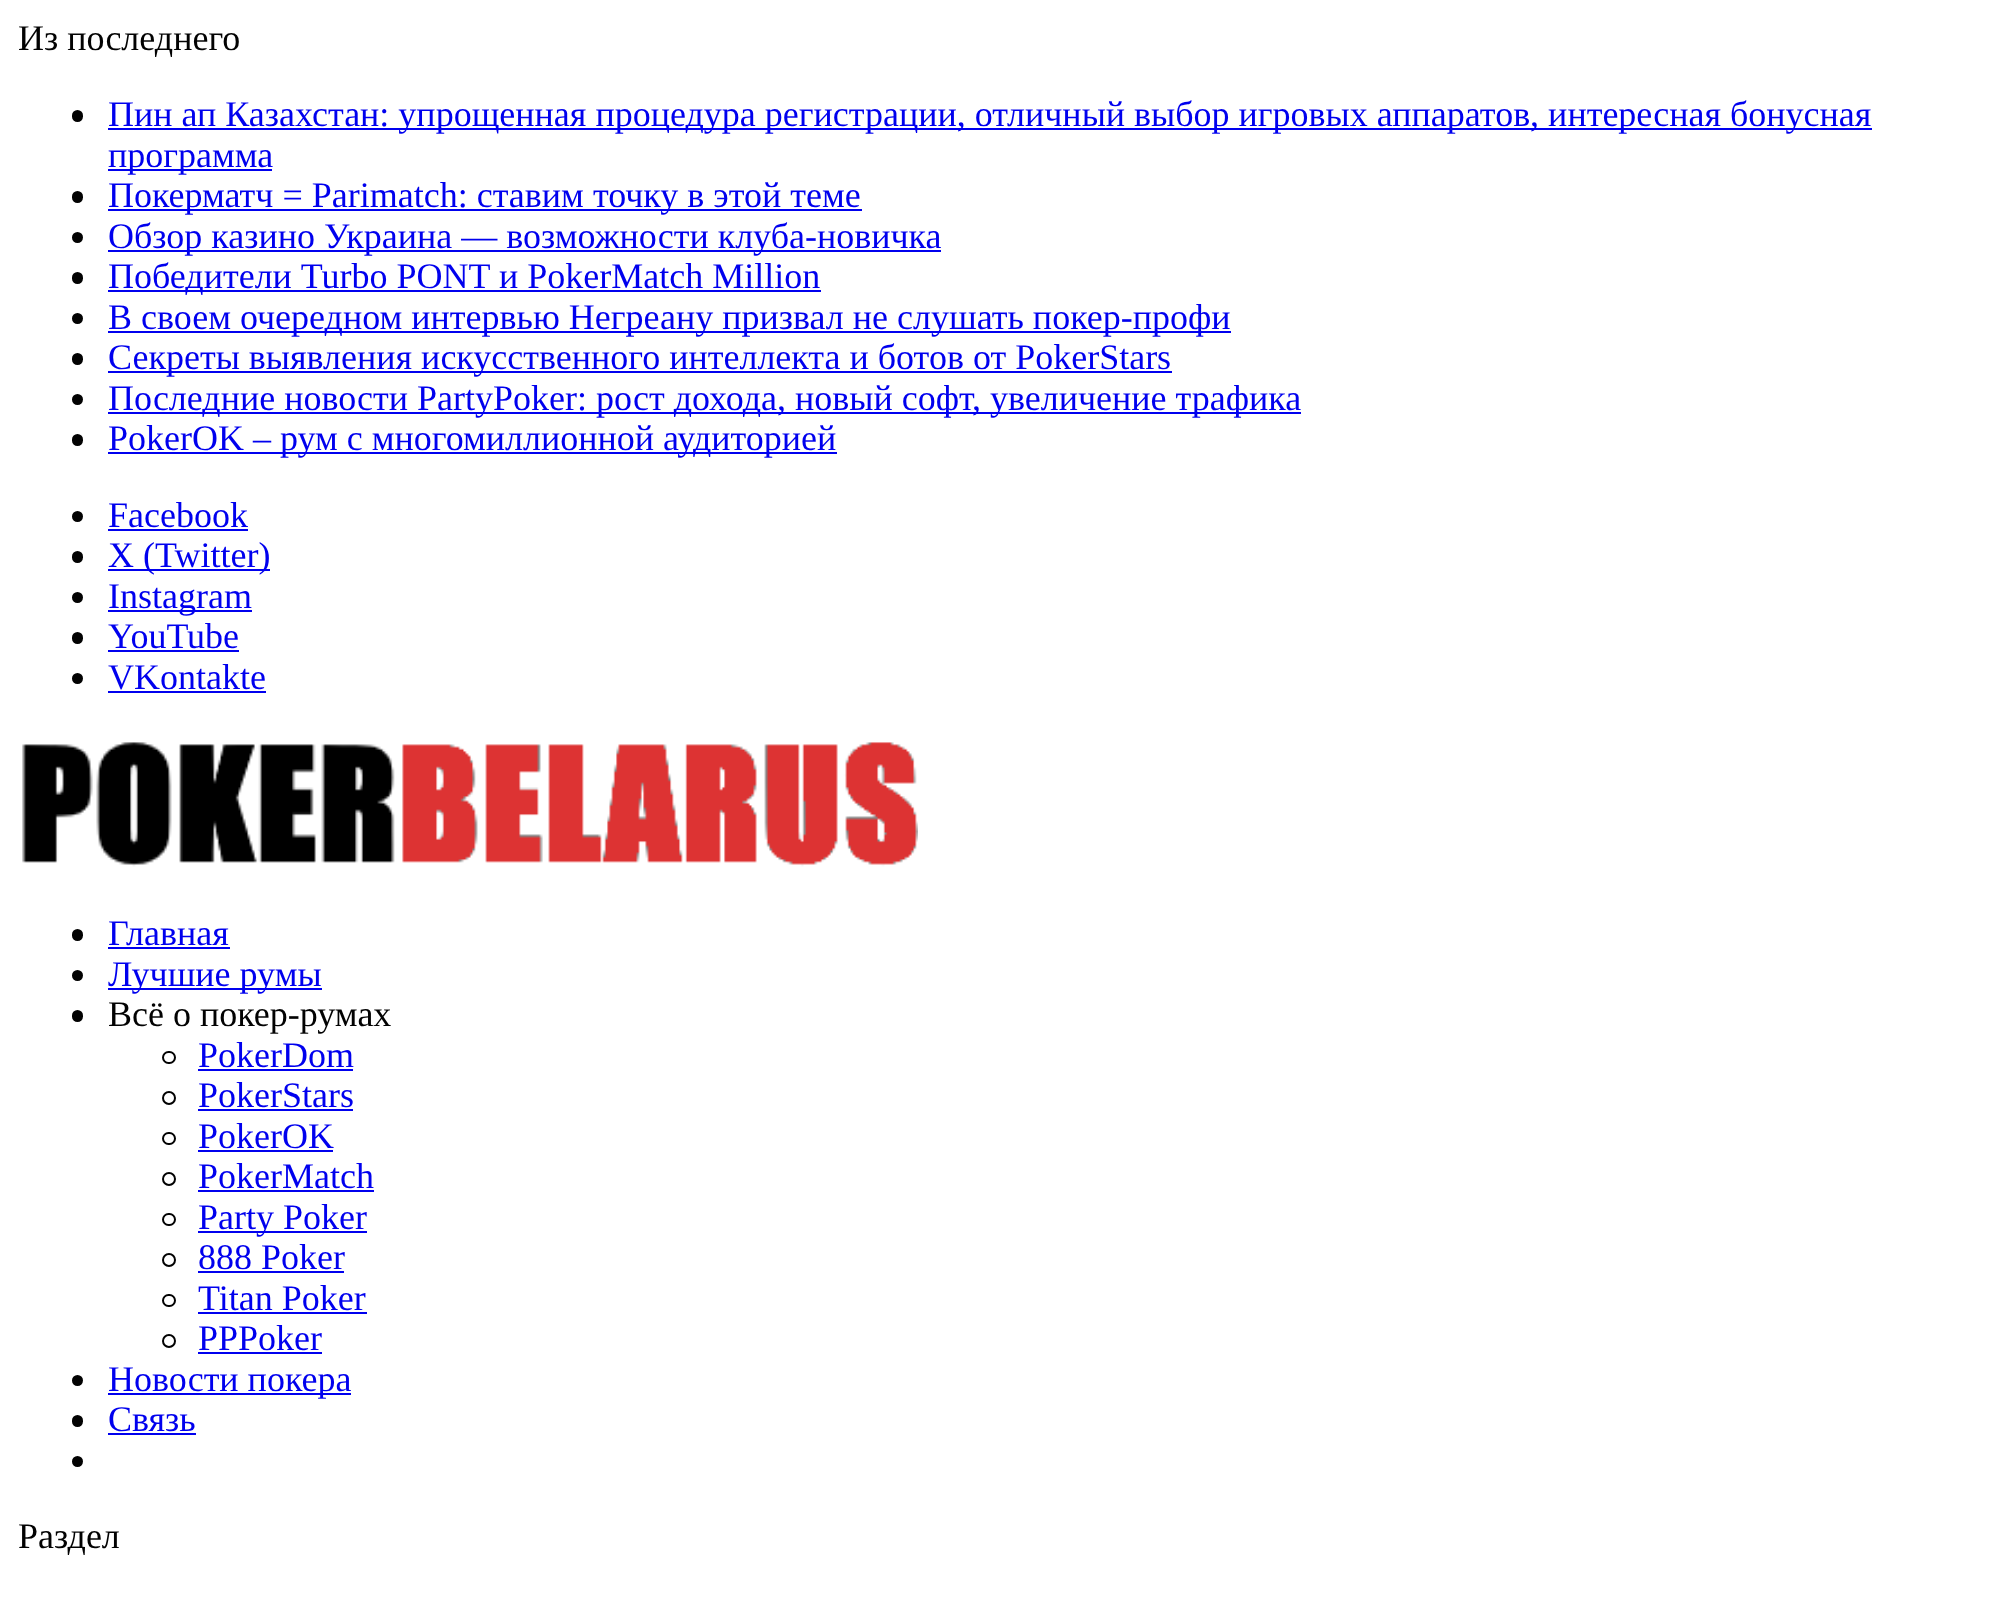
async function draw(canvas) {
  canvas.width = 1994
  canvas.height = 1611
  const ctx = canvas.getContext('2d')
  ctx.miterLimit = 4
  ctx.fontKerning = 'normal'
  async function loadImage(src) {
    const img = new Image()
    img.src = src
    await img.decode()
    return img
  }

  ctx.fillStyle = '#fff'
  ctx.fillRect(0, 0, 1994, 1611)
  ctx.font = '36px Liberation Serif'
  ctx.fillStyle = '#020202'
  ctx.fillText('Из последнего', 18, 50)
  ctx.beginPath()
  ctx.roundRect(72, 110, 11, 12, 5.5)
  ctx.fill()
  ctx.fillStyle = '#00e'
  ctx.fillRect(108, 128, 1764, 2)
  ctx.fillText('Пин ап Казахстан: упрощенная процедура регистрации, отличный выбор игровых аппаратов, интересная бонусная', 108, 126)
  ctx.fillRect(108, 169, 164, 2)
  ctx.fillText('программа', 108, 167)
  ctx.fillStyle = '#020202'
  ctx.beginPath()
  ctx.roundRect(72, 191, 11, 12, 5.5)
  ctx.fill()
  ctx.fillStyle = '#00e'
  ctx.fillRect(108, 209, 754, 2)
  ctx.fillText('Покерматч = Parimatch: ставим точку в этой теме', 108, 207)
  ctx.fillStyle = '#020202'
  ctx.beginPath()
  ctx.arc(77.5, 237.5, 5.5, 0, 2 * Math.PI)
  ctx.fill()
  ctx.fillStyle = '#00e'
  ctx.fillRect(108, 250, 833, 2)
  ctx.fillText('Обзор казино Украина — возможности клуба-новичка', 108, 248)
  ctx.fillStyle = '#020202'
  ctx.beginPath()
  ctx.roundRect(72, 272, 11, 12, 5.5)
  ctx.fill()
  ctx.fillStyle = '#00e'
  ctx.fillRect(108, 290, 713, 2)
  ctx.fillText('Победители Turbo PONT и PokerMatch Million', 108, 288)
  ctx.fillStyle = '#020202'
  ctx.beginPath()
  ctx.arc(77.5, 318.5, 5.5, 0, 2 * Math.PI)
  ctx.fill()
  ctx.fillStyle = '#00e'
  ctx.fillRect(108, 331, 1123, 2)
  ctx.fillText('В своем очередном интервью Негреану призвал не слушать покер-профи', 108, 329)
  ctx.fillStyle = '#020202'
  ctx.beginPath()
  ctx.roundRect(72, 353, 11, 12, 5.5)
  ctx.fill()
  ctx.fillStyle = '#00e'
  ctx.fillRect(108, 371, 1064, 2)
  ctx.fillText('Секреты выявления искусственного интеллекта и ботов от PokerStars', 108, 369)
  ctx.fillStyle = '#020202'
  ctx.beginPath()
  ctx.arc(77.5, 399.5, 5.5, 0, 2 * Math.PI)
  ctx.fill()
  ctx.fillStyle = '#00e'
  ctx.fillRect(108, 412, 1193, 2)
  ctx.fillText('Последние новости PartyPoker: рост дохода, новый софт, увеличение трафика', 108, 410)
  ctx.fillStyle = '#020202'
  ctx.beginPath()
  ctx.roundRect(72, 434, 11, 12, 5.5)
  ctx.fill()
  ctx.fillStyle = '#00e'
  ctx.fillRect(108, 452, 729, 2)
  ctx.fillText('PokerOK – рум с многомиллионной аудиторией', 108, 450)
  ctx.fillStyle = '#020202'
  ctx.beginPath()
  ctx.arc(77.5, 516.5, 5.5, 0, 2 * Math.PI)
  ctx.fill()
  ctx.fillStyle = '#00e'
  ctx.fillText('Facebook', 108, 527)
  ctx.fillRect(108, 529, 140, 2)
  ctx.fillStyle = '#020202'
  ctx.beginPath()
  ctx.roundRect(72, 551, 11, 12, 5.5)
  ctx.fill()
  ctx.fillStyle = '#00e'
  ctx.fillRect(108, 569, 162, 2)
  ctx.fillText('X (Twitter)', 108, 567)
  ctx.fillStyle = '#020202'
  ctx.beginPath()
  ctx.arc(77.5, 597.5, 5.5, 0, 2 * Math.PI)
  ctx.fill()
  ctx.fillStyle = '#00e'
  ctx.fillRect(108, 610, 144, 2)
  ctx.fillText('Instagram', 108, 608)
  ctx.fillStyle = '#020202'
  ctx.beginPath()
  ctx.roundRect(72, 632, 11, 12, 5.5)
  ctx.fill()
  ctx.fillStyle = '#00e'
  ctx.fillText('YouTube', 108, 648)
  ctx.fillRect(108, 650, 131, 2)
  ctx.fillStyle = '#020202'
  ctx.beginPath()
  ctx.arc(77.5, 678.5, 5.5, 0, 2 * Math.PI)
  ctx.fill()
  ctx.fillStyle = '#00e'
  ctx.fillText('VKontakte', 108, 689)
  ctx.fillRect(108, 691, 158, 2)
  ctx.drawImage(await loadImage('image0.png'), 22, 742, 896, 125)
  ctx.fillStyle = '#020202'
  ctx.beginPath()
  ctx.roundRect(72, 929, 11, 12, 5.5)
  ctx.fill()
  ctx.fillStyle = '#00e'
  ctx.fillText('Главная', 108, 945)
  ctx.fillRect(108, 947, 122, 2)
  ctx.fillStyle = '#020202'
  ctx.beginPath()
  ctx.arc(77.5, 975.5, 5.5, 0, 2 * Math.PI)
  ctx.fill()
  ctx.fillStyle = '#00e'
  ctx.fillRect(108, 988, 214, 2)
  ctx.fillText('Лучшие румы', 108, 986)
  ctx.fillStyle = '#020202'
  ctx.beginPath()
  ctx.roundRect(72, 1010, 11, 12, 5.5)
  ctx.fill()
  ctx.fillText('Всё о покер-румах', 108, 1026)
  ctx.beginPath()
  ctx.roundRect(163, 1052, 12, 11, 5.5)
  ctx.strokeStyle = '#020202'
  ctx.lineWidth = 2
  ctx.stroke()
  ctx.fillStyle = '#00e'
  ctx.fillText('PokerDom', 198, 1067)
  ctx.fillRect(198, 1069, 155, 2)
  ctx.beginPath()
  ctx.arc(169, 1098, 6, 0, 2 * Math.PI)
  ctx.stroke()
  ctx.fillText('PokerStars', 198, 1107)
  ctx.fillRect(198, 1109, 155, 2)
  ctx.beginPath()
  ctx.roundRect(163, 1133, 12, 11, 5.5)
  ctx.stroke()
  ctx.fillText('PokerOK', 198, 1148)
  ctx.fillRect(198, 1150, 135, 2)
  ctx.beginPath()
  ctx.arc(169, 1179, 6, 0, 2 * Math.PI)
  ctx.stroke()
  ctx.fillText('PokerMatch', 198, 1188)
  ctx.fillRect(198, 1190, 176, 2)
  ctx.beginPath()
  ctx.roundRect(163, 1214, 12, 11, 5.5)
  ctx.stroke()
  ctx.fillRect(198, 1231, 169, 2)
  ctx.fillText('Party Poker', 198, 1229)
  ctx.beginPath()
  ctx.arc(169, 1260, 6, 0, 2 * Math.PI)
  ctx.stroke()
  ctx.fillText('888 Poker', 198, 1269)
  ctx.fillRect(198, 1271, 146, 2)
  ctx.beginPath()
  ctx.roundRect(163, 1295, 12, 11, 5.5)
  ctx.stroke()
  ctx.fillText('Titan Poker', 198, 1310)
  ctx.fillRect(198, 1312, 169, 2)
  ctx.beginPath()
  ctx.arc(169, 1341, 6, 0, 2 * Math.PI)
  ctx.stroke()
  ctx.fillText('PPPoker', 198, 1350)
  ctx.fillRect(198, 1352, 124, 2)
  ctx.fillStyle = '#020202'
  ctx.beginPath()
  ctx.arc(77.5, 1380.5, 5.5, 0, 2 * Math.PI)
  ctx.fill()
  ctx.fillStyle = '#00e'
  ctx.fillRect(108, 1393, 243, 2)
  ctx.fillText('Новости покера', 108, 1391)
  ctx.fillStyle = '#020202'
  ctx.beginPath()
  ctx.roundRect(72, 1415, 11, 12, 5.5)
  ctx.fill()
  ctx.fillStyle = '#00e'
  ctx.fillText('Связь', 108, 1431)
  ctx.fillRect(108, 1433, 88, 2)
  ctx.fillStyle = '#020202'
  ctx.beginPath()
  ctx.arc(77.5, 1461.5, 5.5, 0, 2 * Math.PI)
  ctx.fill()
  ctx.fillText('Раздел', 18, 1548)
}

draw(document.querySelector('canvas'))
